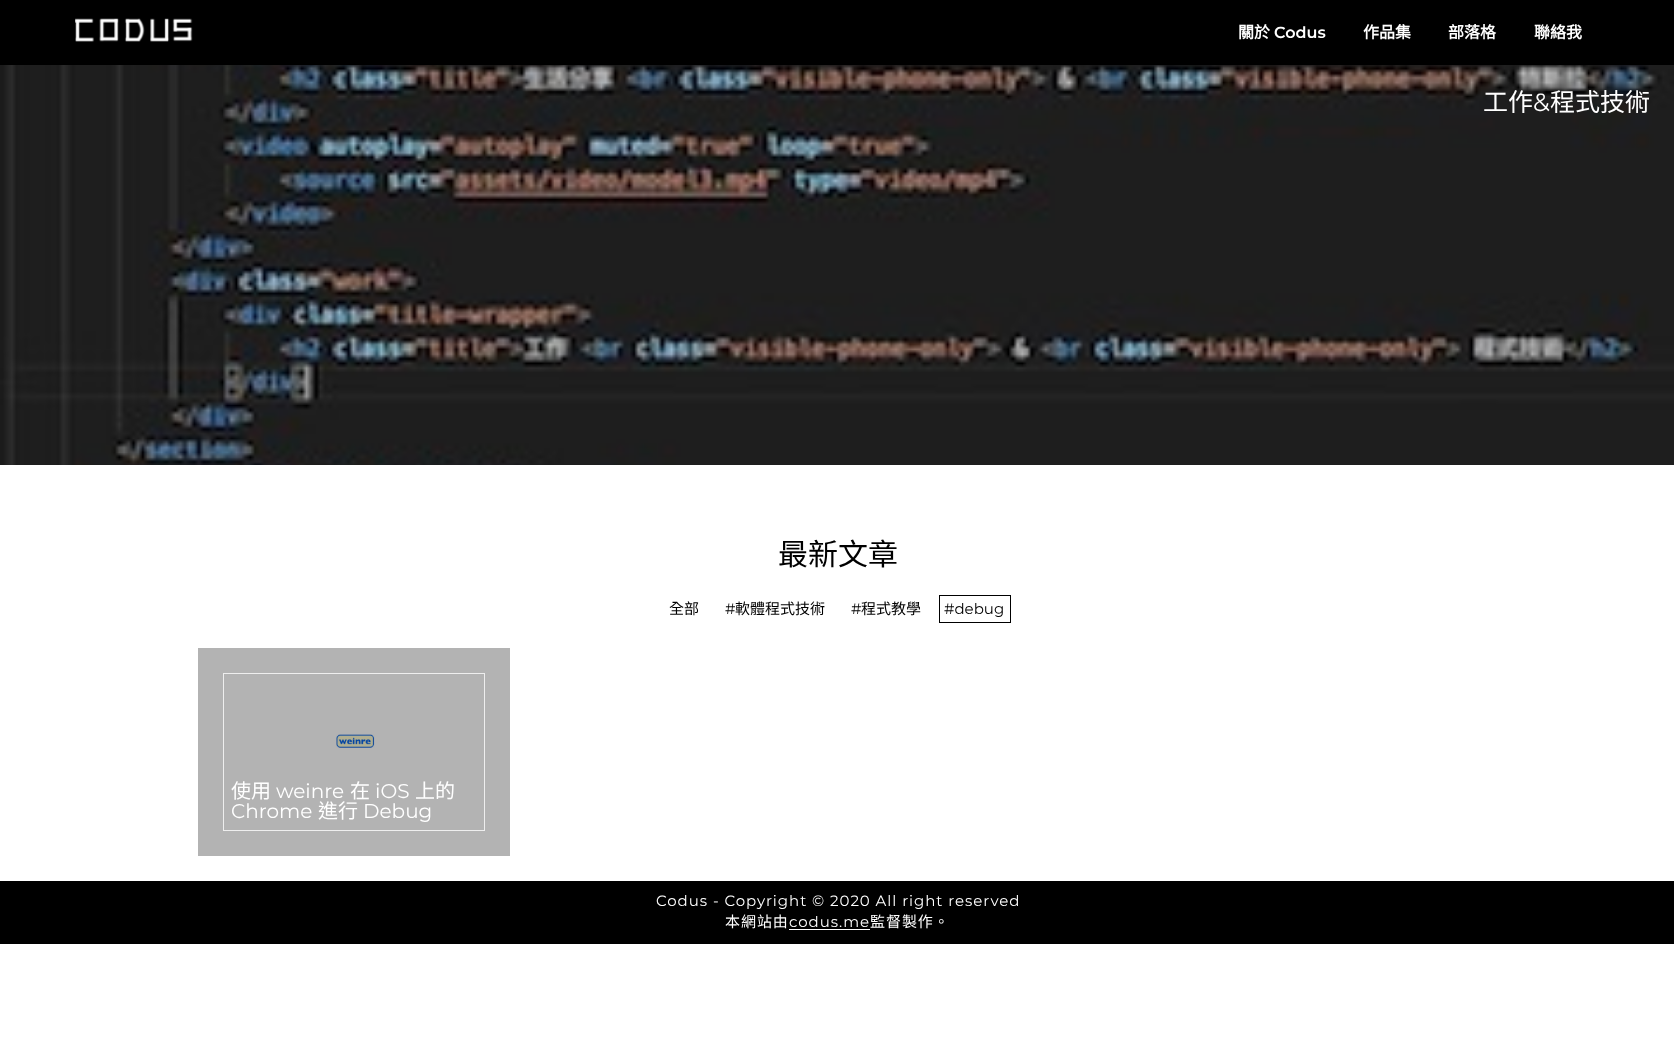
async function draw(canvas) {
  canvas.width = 1674
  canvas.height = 1059
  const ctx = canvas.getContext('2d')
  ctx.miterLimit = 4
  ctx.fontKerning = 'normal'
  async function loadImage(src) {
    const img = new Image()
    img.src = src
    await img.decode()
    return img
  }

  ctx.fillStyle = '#fff'
  ctx.fillRect(0, 0, 1674, 1059)
  ctx.fillStyle = '#b3b3b3'
  ctx.fillRect(198, 648, 312, 208)
  ctx.fillStyle = '#000'
  ctx.fillRect(0, 0, 1674, 65)
  ctx.drawImage(await loadImage('image0.png'), 75, 18, 118, 24)
  ctx.font = 'bold 16px Noto Sans CJK TC'
  ctx.fillStyle = '#fff'
  ctx.fillText('關於', 1238, 38)
  ctx.font = '600 16px Montserrat'
  ctx.fillText('Codus', 1274, 38)
  ctx.font = 'bold 16px Noto Sans CJK TC'
  ctx.fillText('作品集', 1363, 38)
  ctx.fillText('部落格', 1448, 38)
  ctx.fillText('聯絡我', 1534, 38)
  ctx.drawImage(await loadImage('image1.png'), 0, 65, 1674, 400)
  ctx.font = '25px Noto Sans CJK TC'
  ctx.fillText('工作', 1483, 111)
  ctx.font = '25px Montserrat'
  ctx.fillText('&', 1533, 111)
  ctx.font = '25px Noto Sans CJK TC'
  ctx.fillText('程式技術', 1550, 111)
  ctx.font = '30px Noto Sans CJK TC'
  ctx.fillStyle = '#000'
  ctx.fillText('最新文章', 778, 565)
  ctx.font = '15px Noto Sans CJK TC'
  ctx.fillText('全部', 669, 614)
  ctx.font = '15px Montserrat'
  ctx.fillText('#', 725, 614)
  ctx.font = '15px Noto Sans CJK TC'
  ctx.fillText('軟體程式技術', 735, 614)
  ctx.font = '15px Montserrat'
  ctx.fillText('#', 851, 614)
  ctx.font = '15px Noto Sans CJK TC'
  ctx.fillText('程式教學', 861, 614)
  ctx.strokeStyle = '#000'
  ctx.strokeRect(939.5, 595.5, 71, 27)
  ctx.font = '15px Montserrat'
  ctx.fillText('#debug', 944, 614)
  ctx.drawImage(await loadImage('image2.png'), 336, 734, 39, 14)
  ctx.strokeStyle = '#eee'
  ctx.strokeRect(223.5, 673.5, 261, 157)
  ctx.font = '20px Noto Sans CJK TC'
  ctx.fillStyle = '#fff'
  ctx.fillText('使用', 231, 798)
  ctx.font = '20px Montserrat'
  ctx.fillText('weinre', 276, 798)
  ctx.font = '20px Noto Sans CJK TC'
  ctx.fillText('在', 350, 798)
  ctx.font = '20px Montserrat'
  ctx.fillText('iOS', 375, 798)
  ctx.font = '20px Noto Sans CJK TC'
  ctx.fillText('上的', 415, 798)
  ctx.font = '20px Montserrat'
  ctx.fillText('Chrome', 231, 818)
  ctx.font = '20px Noto Sans CJK TC'
  ctx.fillText('進行', 318, 818)
  ctx.font = '20px Montserrat'
  ctx.fillText('Debug', 363, 818)
  ctx.fillStyle = '#000'
  ctx.fillRect(0, 881, 1674, 63)
  ctx.letterSpacing = '0.95px'
  ctx.font = '15px Montserrat'
  ctx.fillStyle = '#fff'
  ctx.fillText('Codus - Copyright © 2020 All right reserved', 656, 906)
  ctx.font = '15px Noto Sans CJK TC'
  ctx.fillText('本網站由', 725, 927)
  ctx.font = '15px Montserrat'
  ctx.fillText('codus.me', 789, 927)
  ctx.fillRect(789, 929, 81, 1)
  ctx.font = '15px Noto Sans CJK TC'
  ctx.fillText('監督製作。', 870, 927)
}

draw(document.querySelector('canvas'))
